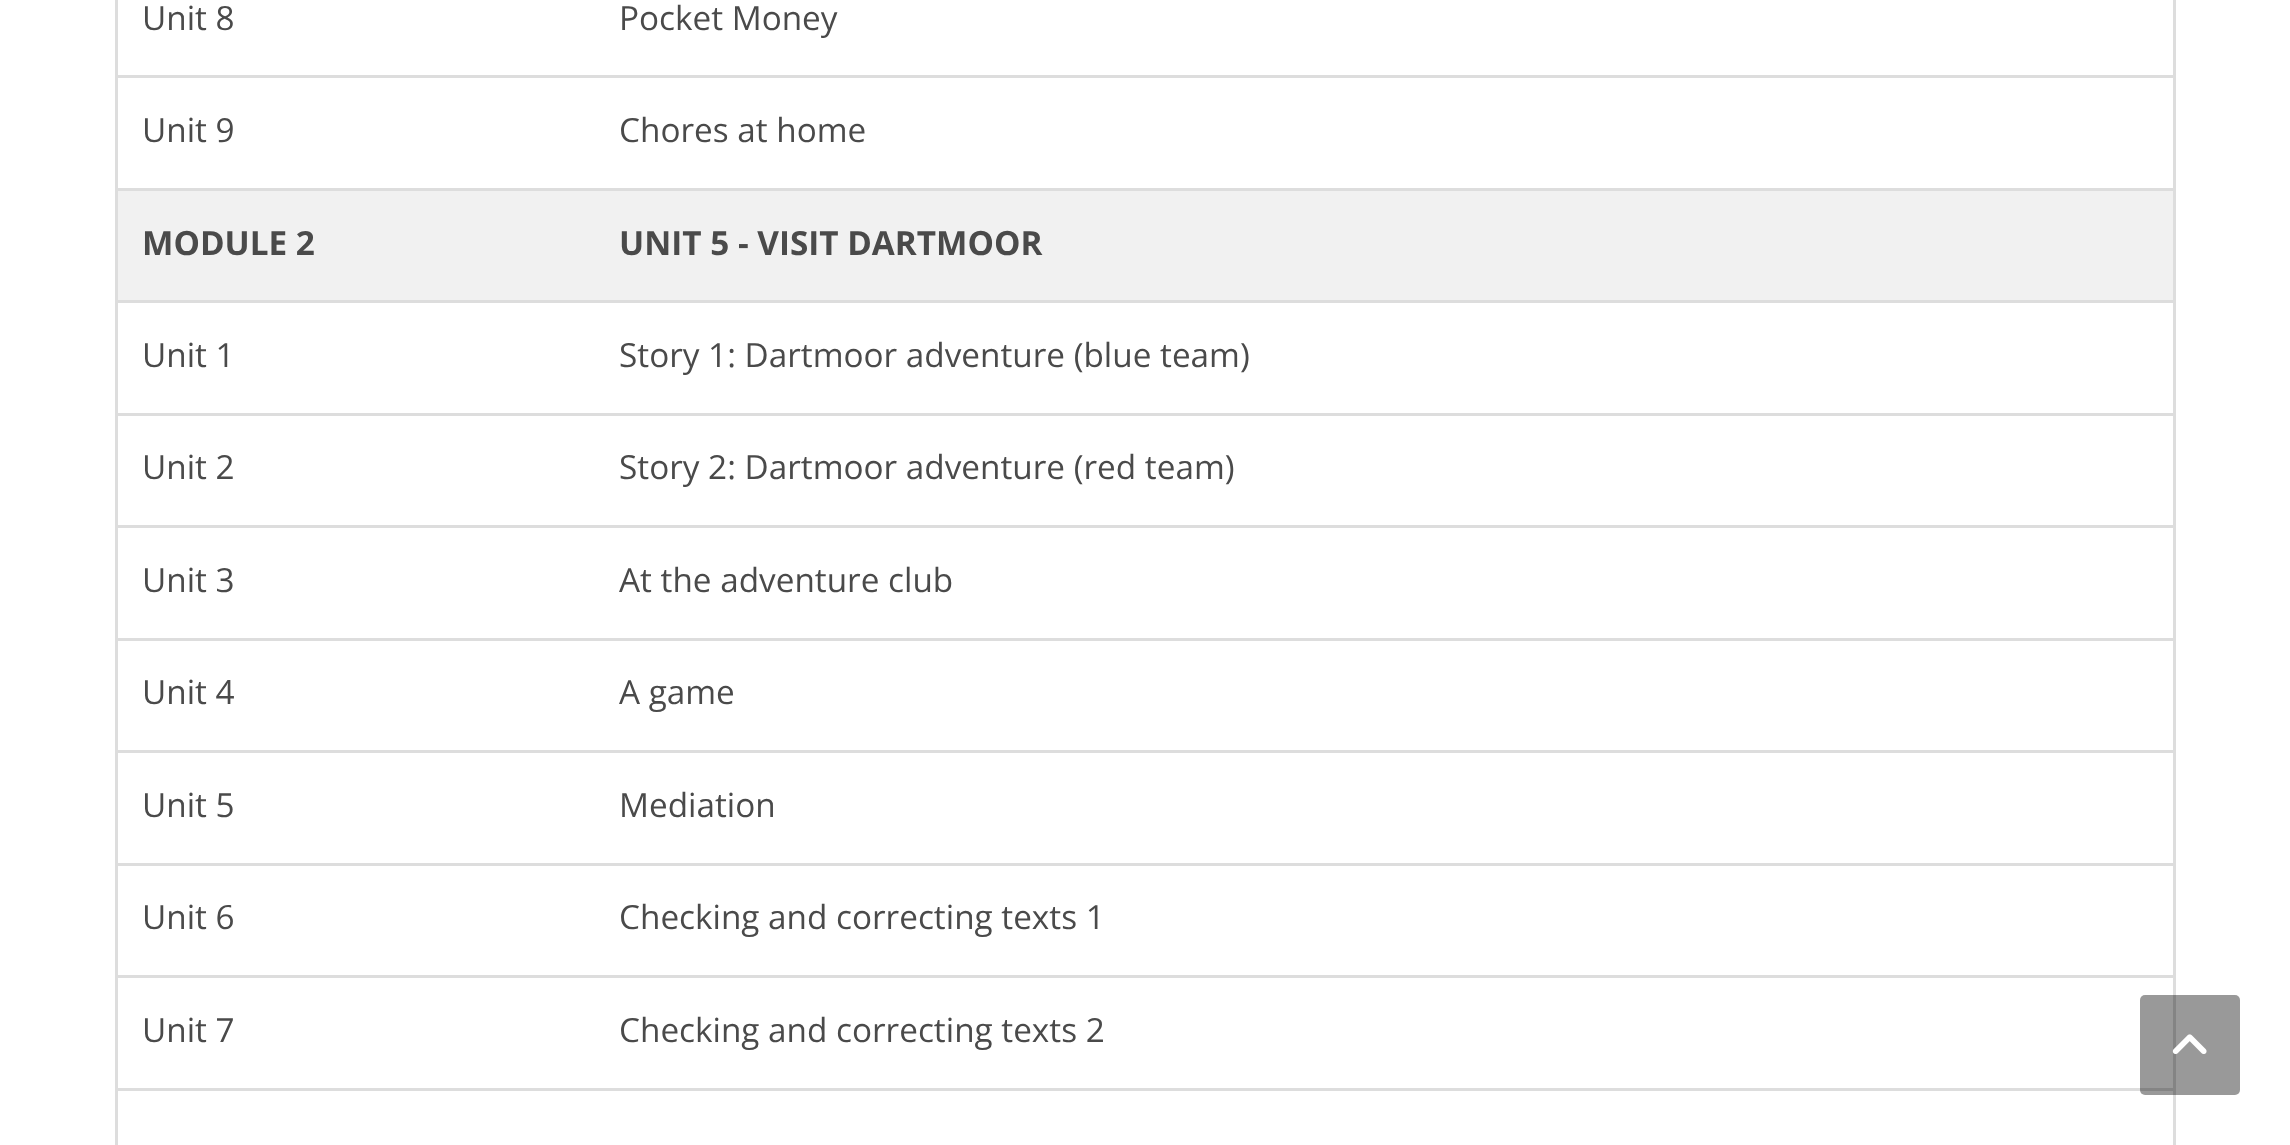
async function draw(canvas) {
  canvas.width = 2290
  canvas.height = 1145
  const ctx = canvas.getContext('2d')
  ctx.miterLimit = 4
  ctx.fontKerning = 'normal'
  async function loadImage(src) {
    const img = new Image()
    img.src = src
    await img.decode()
    return img
  }

  ctx.fillStyle = '#fff'
  ctx.fillRect(0, 0, 2290, 1145)
  ctx.fillStyle = '#ddd'
  ctx.fillRect(2173, 0, 3, 1145)
  ctx.fillRect(115, 0, 3, 1145)
  ctx.font = '33.3px Open Sans'
  ctx.fillStyle = '#4a4a4a'
  ctx.fillText('Unit 8', 142, 30)
  ctx.fillText('Pocket Money', 619, 30)
  ctx.fillStyle = '#ddd'
  ctx.fillRect(115, 75, 2060, 3)
  ctx.fillStyle = '#4a4a4a'
  ctx.fillText('Unit 9', 142, 142)
  ctx.fillText('Chores at home', 619, 142)
  ctx.fillStyle = '#ddd'
  ctx.fillRect(115, 188, 2060, 3)
  ctx.fillStyle = '#f1f1f1'
  ctx.fillRect(118, 191, 2055, 109)
  ctx.font = 'bold 33.3px Open Sans'
  ctx.fillStyle = '#4a4a4a'
  ctx.fillText('MODULE 2', 142, 255)
  ctx.fillText('UNIT 5 - VISIT DARTMOOR', 619, 255)
  ctx.fillStyle = '#ddd'
  ctx.fillRect(115, 300, 2060, 3)
  ctx.font = '33.3px Open Sans'
  ctx.fillStyle = '#4a4a4a'
  ctx.fillText('Unit 1', 142, 367)
  ctx.fillText('Story 1: Dartmoor adventure (blue team)', 619, 367)
  ctx.fillStyle = '#ddd'
  ctx.fillRect(115, 413, 2060, 3)
  ctx.fillStyle = '#4a4a4a'
  ctx.fillText('Unit 2', 142, 479)
  ctx.fillText('Story 2: Dartmoor adventure (red team)', 619, 479)
  ctx.fillStyle = '#ddd'
  ctx.fillRect(115, 525, 2060, 3)
  ctx.fillStyle = '#4a4a4a'
  ctx.fillText('Unit 3', 142, 592)
  ctx.fillText('At the adventure club', 619, 592)
  ctx.fillStyle = '#ddd'
  ctx.fillRect(115, 638, 2060, 3)
  ctx.fillStyle = '#4a4a4a'
  ctx.fillText('Unit 4', 142, 704)
  ctx.fillText('A game', 619, 704)
  ctx.fillStyle = '#ddd'
  ctx.fillRect(115, 750, 2060, 3)
  ctx.fillStyle = '#4a4a4a'
  ctx.fillText('Unit 5', 142, 817)
  ctx.fillText('Mediation', 619, 817)
  ctx.fillStyle = '#ddd'
  ctx.fillRect(115, 863, 2060, 3)
  ctx.fillStyle = '#4a4a4a'
  ctx.fillText('Unit 6', 142, 929)
  ctx.fillText('Checking and correcting texts 1', 619, 929)
  ctx.fillStyle = '#ddd'
  ctx.fillRect(115, 975, 2060, 3)
  ctx.fillStyle = '#4a4a4a'
  ctx.fillText('Unit 7', 142, 1042)
  ctx.fillText('Checking and correcting texts 2', 619, 1042)
  ctx.fillStyle = '#ddd'
  ctx.fillRect(115, 1088, 2060, 3)
  ctx.fillStyle = '#00000066'
  ctx.beginPath()
  ctx.roundRect(2140, 995, 100, 100, 5)
  ctx.fill()
  ctx.drawImage(await loadImage('image0.png'), 2172, 1034, 35, 20)
}

draw(document.querySelector('canvas'))
